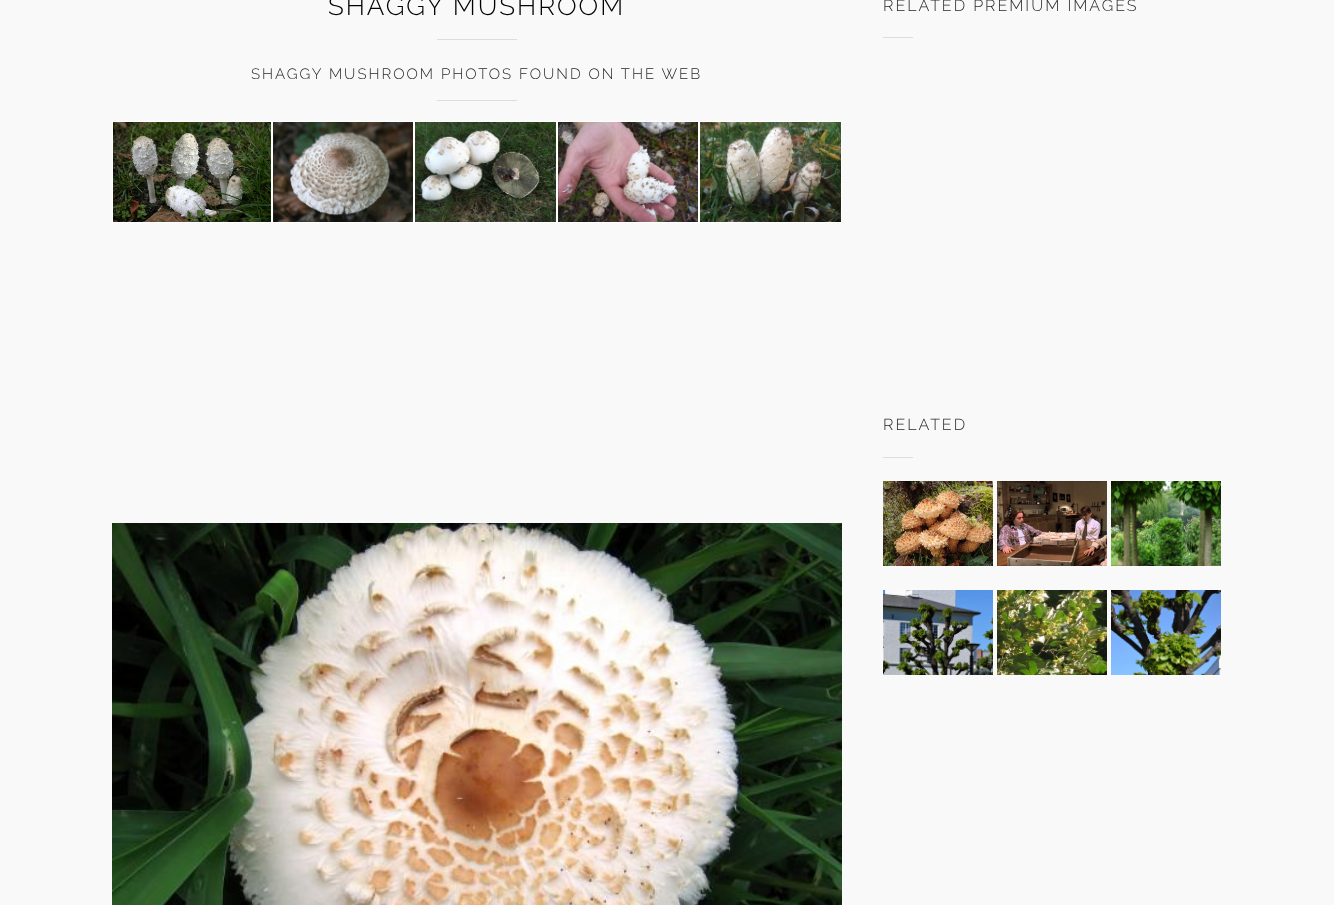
async function draw(canvas) {
  canvas.width = 1334
  canvas.height = 905
  const ctx = canvas.getContext('2d')
  ctx.miterLimit = 4
  ctx.fontKerning = 'normal'
  async function loadImage(src) {
    const img = new Image()
    img.src = src
    await img.decode()
    return img
  }

  ctx.fillStyle = '#f9f9f9'
  ctx.fillRect(0, 0, 1334, 905)
  ctx.letterSpacing = '2px'
  ctx.font = '300 26px Raleway'
  ctx.fillStyle = '#000'
  ctx.fillText('SHAGGY MUSHROOM', 328, 15)
  ctx.fillStyle = '#ddd'
  ctx.fillRect(437, 39, 80, 1)
  ctx.font = '300 15px Raleway'
  ctx.fillStyle = '#272727'
  ctx.fillText('SHAGGY MUSHROOM PHOTOS FOUND ON THE WEB', 251, 79)
  ctx.fillStyle = '#ddd'
  ctx.fillRect(437, 100, 80, 1)
  ctx.drawImage(await loadImage('image0.png'), 113, 122, 158, 100)
  ctx.strokeStyle = '#fff'
  ctx.strokeRect(112.5, 121.5, 159, 101)
  ctx.drawImage(await loadImage('image1.png'), 273, 122, 140, 100)
  ctx.strokeRect(272.5, 121.5, 141, 101)
  ctx.drawImage(await loadImage('image2.png'), 415, 122, 141, 100)
  ctx.strokeRect(414.5, 121.5, 142, 101)
  ctx.drawImage(await loadImage('image3.png'), 558, 122, 140, 100)
  ctx.strokeRect(557.5, 121.5, 141, 101)
  ctx.drawImage(await loadImage('image4.png'), 700, 122, 141, 100)
  ctx.strokeRect(699.5, 121.5, 142, 101)
  ctx.drawImage(await loadImage('image5.png'), 112, 523, 730, 382)
  ctx.font = '300 16px Raleway'
  ctx.fillStyle = '#272727'
  ctx.fillText('RELATED PREMIUM IMAGES', 883, 11)
  ctx.fillStyle = '#ddd'
  ctx.fillRect(883, 37, 30, 1)
  ctx.fillStyle = '#272727'
  ctx.fillText('RELATED', 883, 430)
  ctx.fillStyle = '#ddd'
  ctx.fillRect(883, 457, 30, 1)
  ctx.drawImage(await loadImage('image6.png'), 883, 481, 110, 85)
  ctx.drawImage(await loadImage('image7.png'), 997, 481, 110, 85)
  ctx.drawImage(await loadImage('image8.png'), 1111, 481, 110, 85)
  ctx.drawImage(await loadImage('image9.png'), 883, 590, 110, 85)
  ctx.drawImage(await loadImage('image10.png'), 997, 590, 110, 85)
  ctx.drawImage(await loadImage('image11.png'), 1111, 590, 110, 85)
}

draw(document.querySelector('canvas'))
